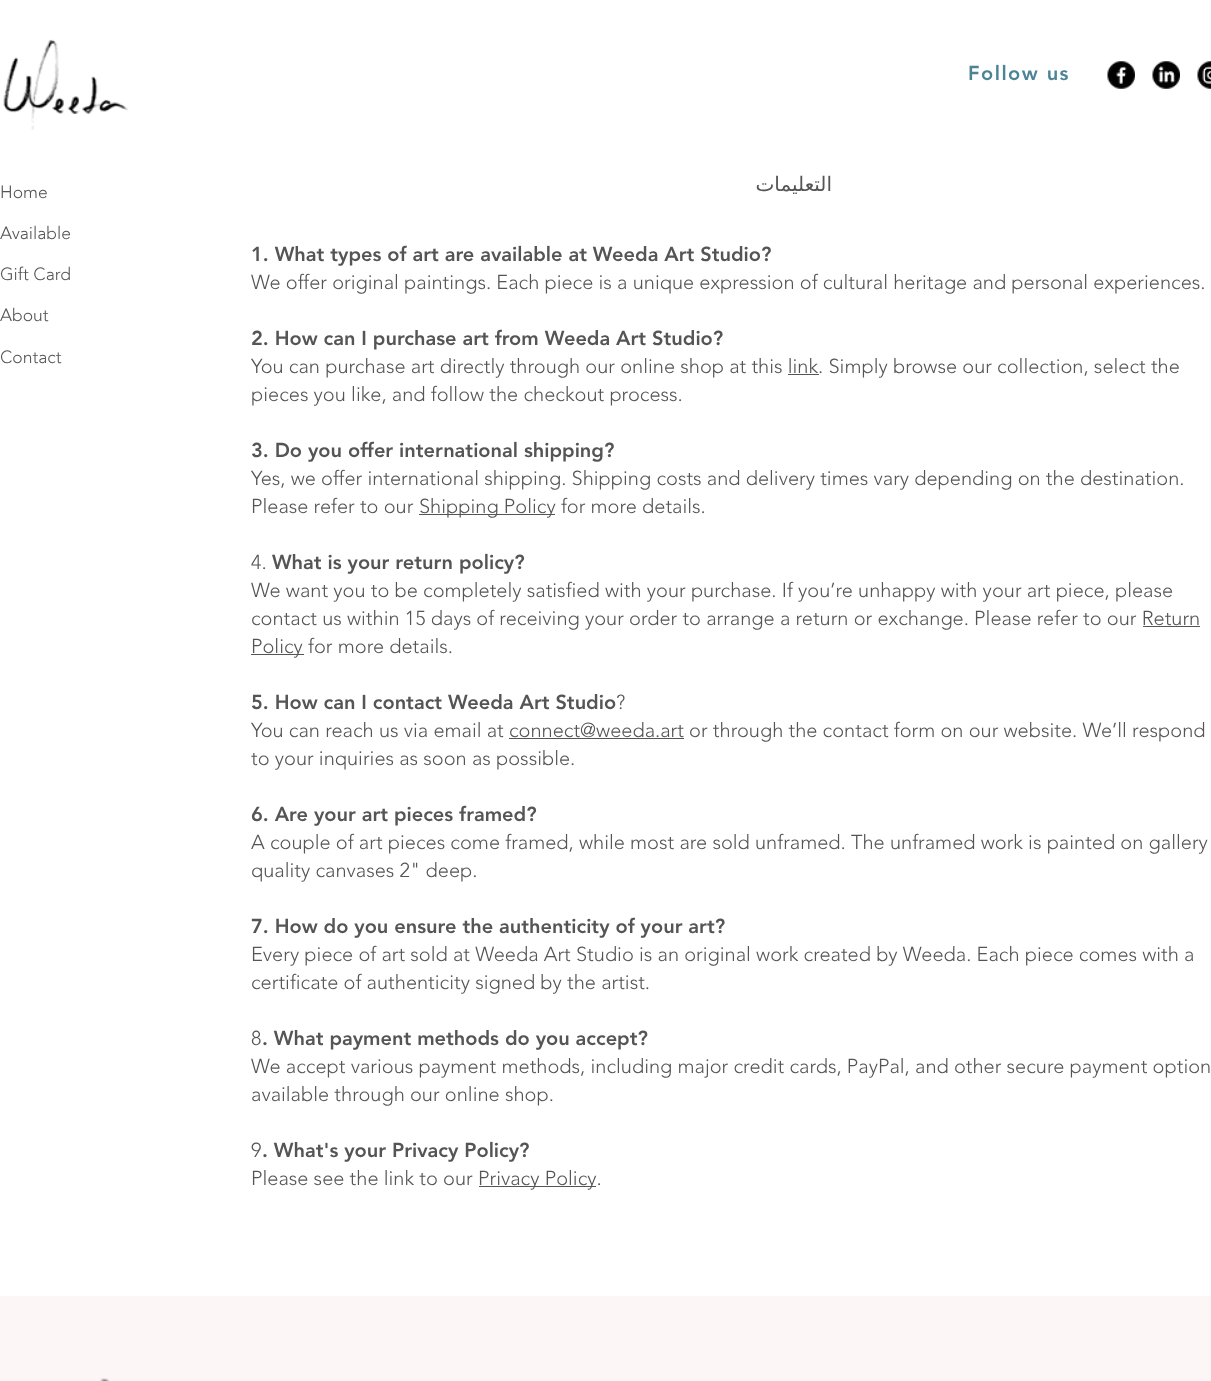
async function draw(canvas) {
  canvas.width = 1211
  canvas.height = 1381
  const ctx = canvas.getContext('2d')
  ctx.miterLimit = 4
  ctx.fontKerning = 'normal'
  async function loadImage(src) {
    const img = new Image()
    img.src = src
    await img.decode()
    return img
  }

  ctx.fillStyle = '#fff'
  ctx.fillRect(0, 0, 1211, 1381)
  ctx.drawImage(await loadImage('image0.png'), 3, 39, 126, 91)
  ctx.letterSpacing = '1.5px'
  ctx.font = '900 20px "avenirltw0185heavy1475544"'
  ctx.fillStyle = '#4d8495'
  ctx.fillText('Follow us', 968, 80)
  ctx.drawImage(await loadImage('image1.png'), 1107, 61, 28, 28)
  ctx.drawImage(await loadImage('image2.png'), 1152, 61, 28, 28)
  ctx.drawImage(await loadImage('image3.png'), 1197, 61, 14, 28)
  ctx.letterSpacing = '0px'
  ctx.font = '300 17.5px "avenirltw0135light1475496"'
  ctx.fillStyle = '#555'
  ctx.fillText('Home', 0, 198)
  ctx.fillText('Available', 0, 239)
  ctx.fillText('Gift Card', 0, 280)
  ctx.fillText('About', 0, 321)
  ctx.fillText('Contact', 0, 363)
  ctx.letterSpacing = '2px'
  ctx.direction = 'rtl'
  ctx.font = '20px DejaVu Sans'
  ctx.fillText('التعليمات', 832, 191)
  ctx.letterSpacing = '0px'
  ctx.direction = 'ltr'
  ctx.font = '900 20px "avenirltw0185heavy1475544"'
  ctx.fillText('1. What types of art are available at Weeda Art Studio?', 251, 261)
  ctx.font = '300 20px "avenirltw0135light1475496"'
  ctx.fillText('We offer original paintings. Each piece is a unique expression of cultural heritage and personal experiences.', 251, 289)
  ctx.font = '900 20px "avenirltw0185heavy1475544"'
  ctx.fillText('2. How can I purchase art from Weeda Art Studio?', 251, 345)
  ctx.font = '300 20px "avenirltw0135light1475496"'
  ctx.fillText('You can purchase art directly through our online shop at this link. Simply browse our collection, select the', 251, 373)
  ctx.fillRect(788, 374, 31, 1)
  ctx.fillText('pieces you like, and follow the checkout process.', 251, 401)
  ctx.font = '900 20px "avenirltw0185heavy1475544"'
  ctx.fillText('3. Do you offer international shipping?', 251, 457)
  ctx.font = '300 20px "avenirltw0135light1475496"'
  ctx.fillText('Yes, we offer international shipping. Shipping costs and delivery times vary depending on the destination.', 251, 485)
  ctx.fillText('Please refer to our', 251, 513)
  ctx.fillRect(419, 514, 136, 1)
  ctx.fillText('Shipping Policy for more details.', 419, 513)
  ctx.fillText('4.', 251, 569)
  ctx.font = '900 20px "avenirltw0185heavy1475544"'
  ctx.fillText('What is your return policy?', 272, 569)
  ctx.font = '300 20px "avenirltw0135light1475496"'
  ctx.fillText('We want you to be completely satisfied with your purchase. If you’re unhappy with your art piece, please', 251, 597)
  ctx.fillText('contact us within 15 days of receiving your order to arrange a return or exchange. Please refer to our Return', 251, 625)
  ctx.fillRect(1143, 626, 57, 1)
  ctx.fillRect(251, 654, 53, 1)
  ctx.fillText('Policy for more details.', 251, 653)
  ctx.font = '900 20px "avenirltw0185heavy1475544"'
  ctx.fillText('5. How can I contact Weeda Art Studio', 251, 709)
  ctx.font = '300 20px "avenirltw0135light1475496"'
  ctx.fillText('?', 616, 709)
  ctx.fillText('You can reach us via email at connect@weeda.art or through the contact form on our website. We’ll respond', 251, 737)
  ctx.fillRect(509, 738, 175, 1)
  ctx.fillText('to your inquiries as soon as possible.', 251, 765)
  ctx.font = '900 20px "avenirltw0185heavy1475544"'
  ctx.fillText('6. Are your art pieces framed?', 251, 821)
  ctx.font = '300 20px "avenirltw0135light1475496"'
  ctx.fillText('A couple of art pieces come framed, while most are sold unframed. The unframed work is painted on gallery', 251, 849)
  ctx.fillText('quality canvases 2" deep.', 251, 877)
  ctx.font = '900 20px "avenirltw0185heavy1475544"'
  ctx.fillText('7. How do you ensure the authenticity of your art?', 251, 933)
  ctx.font = '300 20px "avenirltw0135light1475496"'
  ctx.fillText('Every piece of art sold at Weeda Art Studio is an original work created by Weeda. Each piece comes with a', 251, 961)
  ctx.fillText('certificate of authenticity signed by the artist.', 251, 989)
  ctx.fillText('8', 251, 1045)
  ctx.font = '900 20px "avenirltw0185heavy1475544"'
  ctx.fillText('. What payment methods do you accept?', 262, 1045)
  ctx.font = '300 20px "avenirltw0135light1475496"'
  ctx.fillText('We accept various payment methods, including major credit cards, PayPal, and other secure payment option', 251, 1073)
  ctx.fillText('available through our online shop.', 251, 1101)
  ctx.fillText('9', 251, 1157)
  ctx.font = '900 20px "avenirltw0185heavy1475544"'
  ctx.fillText('. What\'s your Privacy Policy?', 262, 1157)
  ctx.font = '300 20px "avenirltw0135light1475496"'
  ctx.fillText('Please see the link to our', 251, 1185)
  ctx.fillRect(479, 1186, 117, 1)
  ctx.fillText('Privacy Policy.', 478, 1185)
  ctx.fillStyle = '#fcf6f7'
  ctx.fillRect(0, 1296, 1211, 85)
  ctx.drawImage(await loadImage('image4.png'), 99, 1378, 11, 3)
}

draw(document.querySelector('canvas'))
